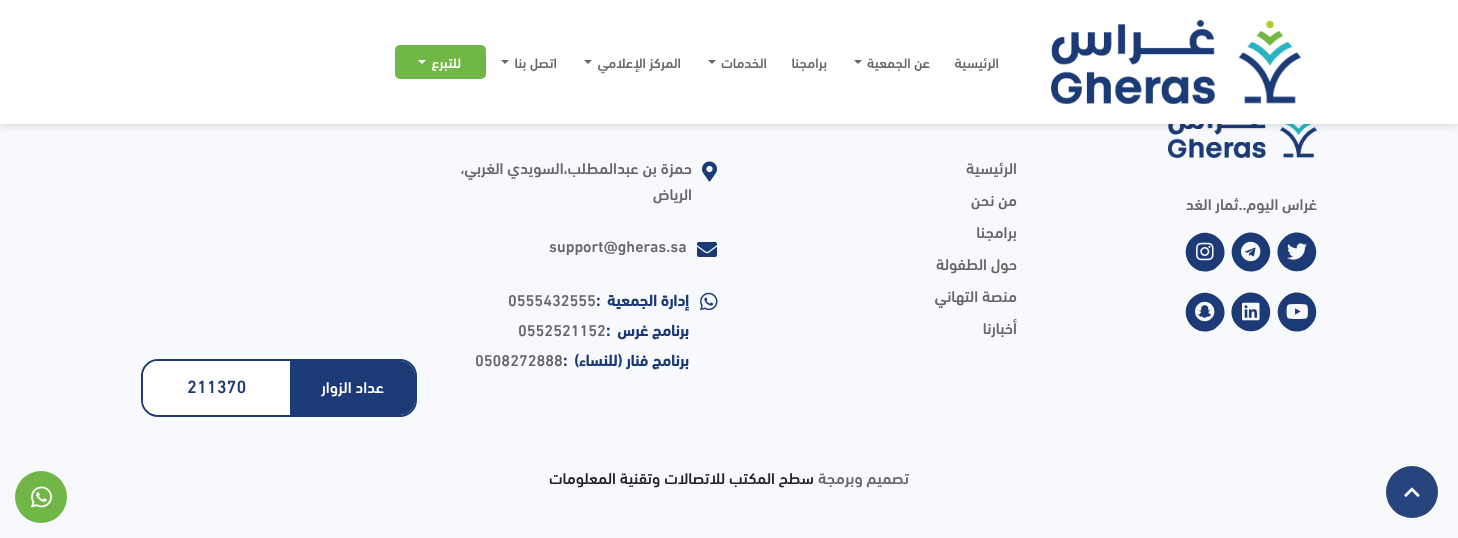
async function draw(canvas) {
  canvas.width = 1458
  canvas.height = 538
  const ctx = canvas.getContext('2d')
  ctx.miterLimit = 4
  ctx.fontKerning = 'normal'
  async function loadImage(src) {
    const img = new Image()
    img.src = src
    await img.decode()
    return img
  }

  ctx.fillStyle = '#f7f9fd'
  ctx.fillRect(0, 0, 1458, 538)
  ctx.drawImage(await loadImage('image2.png'), 1168, 124, 149, 34)
  ctx.fillStyle = '#0000001a'
  ctx.filter = 'blur(3px)'
  ctx.beginPath()
  ctx.rect(0, 3, 1458, 124)
  ctx.fill()
  ctx.filter = 'none'
  ctx.fillStyle = '#fff'
  ctx.fillRect(0, 0, 1458, 124)
  ctx.drawImage(await loadImage('image0.png'), 1051, 20, 250, 84)
  ctx.direction = 'rtl'
  ctx.font = '500 14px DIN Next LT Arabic'
  ctx.fillStyle = '#666'
  ctx.fillText('الرئيسية', 999, 68)
  ctx.fillText('عن الجمعية', 930, 68)
  ctx.beginPath()
  ctx.moveTo(854, 60)
  ctx.lineTo(862, 60)
  ctx.lineTo(858, 64)
  ctx.closePath()
  ctx.fill()
  ctx.fillText('برامجنا', 827, 68)
  ctx.fillText('الخدمات', 767, 68)
  ctx.beginPath()
  ctx.moveTo(708, 60)
  ctx.lineTo(716, 60)
  ctx.lineTo(712, 64)
  ctx.closePath()
  ctx.fill()
  ctx.fillText('المركز الإعلامي', 681, 68)
  ctx.beginPath()
  ctx.moveTo(584, 60)
  ctx.lineTo(592, 60)
  ctx.lineTo(588, 64)
  ctx.closePath()
  ctx.fill()
  ctx.fillText('اتصل بنا', 557, 68)
  ctx.beginPath()
  ctx.moveTo(501, 60)
  ctx.lineTo(509, 60)
  ctx.lineTo(505, 64)
  ctx.closePath()
  ctx.fill()
  ctx.fillStyle = '#71b747'
  ctx.beginPath()
  ctx.roundRect(395, 45, 91, 34, 5)
  ctx.fill()
  ctx.fillStyle = '#fff'
  ctx.fillText('للتبرع', 461, 68)
  ctx.beginPath()
  ctx.moveTo(418, 60)
  ctx.lineTo(426, 60)
  ctx.lineTo(422, 64)
  ctx.closePath()
  ctx.fill()
  ctx.fillStyle = '#27457d'
  ctx.beginPath()
  ctx.arc(1412, 492, 26, 0, 2 * Math.PI)
  ctx.fill()
  ctx.drawImage(await loadImage('image1.png'), 1404, 487, 16, 10)
  ctx.font = '500 16px DIN Next LT Arabic'
  ctx.fillStyle = '#666'
  ctx.fillText('غراس اليوم..ثمار الغد', 1317, 210)
  ctx.fillStyle = '#1c3b76'
  ctx.beginPath()
  ctx.moveTo(1283.5, 238.5)
  ctx.bezierCurveTo(1286.5, 235, 1290.5, 233, 1295, 232.5)
  ctx.bezierCurveTo(1313, 231, 1323.5, 253, 1310.5, 265.5)
  ctx.bezierCurveTo(1298, 278.5, 1276, 268, 1277.5, 250)
  ctx.bezierCurveTo(1278, 245.5, 1280, 241.5, 1283.5, 238.5)
  ctx.closePath()
  ctx.fill()
  ctx.drawImage(await loadImage('image3.png'), 1287, 243, 20, 17)
  ctx.beginPath()
  ctx.moveTo(1237.5, 238.5)
  ctx.bezierCurveTo(1240.5, 235, 1244.5, 233, 1249, 232.5)
  ctx.bezierCurveTo(1267, 231, 1277.5, 253, 1264.5, 265.5)
  ctx.bezierCurveTo(1261.5, 269, 1257.5, 271, 1253, 271.5)
  ctx.bezierCurveTo(1235, 273, 1224.5, 251, 1237.5, 238.5)
  ctx.closePath()
  ctx.fill()
  ctx.drawImage(await loadImage('image4.png'), 1241, 241, 20, 21)
  ctx.beginPath()
  ctx.moveTo(1191.5, 238.5)
  ctx.bezierCurveTo(1204, 225.5, 1226, 236, 1224.5, 254)
  ctx.bezierCurveTo(1224, 258.5, 1222, 262.5, 1218.5, 265.5)
  ctx.bezierCurveTo(1215.5, 269, 1211.5, 271, 1207, 271.5)
  ctx.bezierCurveTo(1189, 273, 1178.5, 251, 1191.5, 238.5)
  ctx.closePath()
  ctx.fill()
  ctx.drawImage(await loadImage('image5.png'), 1196, 242, 18, 19)
  ctx.beginPath()
  ctx.moveTo(1283.5, 298.5)
  ctx.bezierCurveTo(1286.5, 295, 1290.5, 293, 1295, 292.5)
  ctx.bezierCurveTo(1313, 291, 1323.5, 313, 1310.5, 325.5)
  ctx.bezierCurveTo(1307.5, 329, 1303.5, 331, 1299, 331.5)
  ctx.bezierCurveTo(1281, 333, 1270.5, 311, 1283.5, 298.5)
  ctx.closePath()
  ctx.fill()
  ctx.drawImage(await loadImage('image6.png'), 1286, 304, 22, 15)
  ctx.beginPath()
  ctx.moveTo(1237.5, 298.5)
  ctx.bezierCurveTo(1240.5, 295, 1244.5, 293, 1249, 292.5)
  ctx.bezierCurveTo(1267, 291, 1277.5, 313, 1264.5, 325.5)
  ctx.bezierCurveTo(1252, 338.5, 1230, 328, 1231.5, 310)
  ctx.bezierCurveTo(1232, 305.5, 1234, 301.5, 1237.5, 298.5)
  ctx.closePath()
  ctx.fill()
  ctx.drawImage(await loadImage('image7.png'), 1242, 302, 18, 19)
  ctx.beginPath()
  ctx.moveTo(1191.5, 298.5)
  ctx.bezierCurveTo(1204, 285.5, 1226, 296, 1224.5, 314)
  ctx.bezierCurveTo(1224, 318.5, 1222, 322.5, 1218.5, 325.5)
  ctx.bezierCurveTo(1215.5, 329, 1211.5, 331, 1207, 331.5)
  ctx.bezierCurveTo(1189, 333, 1178.5, 311, 1191.5, 298.5)
  ctx.closePath()
  ctx.fill()
  ctx.drawImage(await loadImage('image8.png'), 1195, 301, 20, 21)
  ctx.fillStyle = '#666'
  ctx.fillText('الرئيسية', 1017, 174)
  ctx.fillText('من نحن', 1017, 206)
  ctx.fillText('برامجنا', 1017, 238)
  ctx.fillText('حول الطفولة', 1017, 270)
  ctx.fillText('منصة التهاني', 1017, 302)
  ctx.fillText('أخبارنا', 1017, 334)
  ctx.drawImage(await loadImage('image9.png'), 702, 161, 15, 21)
  ctx.fillText('حمزة بن عبدالمطلب،السويدي الغربي،', 692, 174)
  ctx.fillText('الرياض', 692, 200)
  ctx.drawImage(await loadImage('image10.png'), 697, 242, 20, 15)
  ctx.direction = 'ltr'
  ctx.fillText('support@gheras.sa', 549, 252)
  ctx.drawImage(await loadImage('image11.png'), 700, 292, 18, 19)
  ctx.direction = 'rtl'
  ctx.font = 'bold 16px DIN Next LT Arabic'
  ctx.fillStyle = '#1c3b76'
  ctx.fillText('إدارة الجمعية', 689, 306)
  ctx.direction = 'ltr'
  ctx.fillText(':', 596, 306)
  ctx.font = '500 16px DIN Next LT Arabic'
  ctx.fillStyle = '#666'
  ctx.fillText('0555432555', 508, 306)
  ctx.direction = 'rtl'
  ctx.font = 'bold 16px DIN Next LT Arabic'
  ctx.fillStyle = '#1c3b76'
  ctx.fillText('برنامج غرس', 689, 336)
  ctx.direction = 'ltr'
  ctx.fillText(':', 606, 336)
  ctx.font = '500 16px DIN Next LT Arabic'
  ctx.fillStyle = '#666'
  ctx.fillText('0552521152', 518, 336)
  ctx.direction = 'rtl'
  ctx.font = 'bold 16px DIN Next LT Arabic'
  ctx.fillStyle = '#1c3b76'
  ctx.fillText('برنامج فنار (للنساء)', 689, 366)
  ctx.direction = 'ltr'
  ctx.fillText(':', 563, 366)
  ctx.font = '500 16px DIN Next LT Arabic'
  ctx.fillStyle = '#666'
  ctx.fillText('0508272888', 475, 366)
  ctx.beginPath()
  ctx.roundRect(142, 360, 274, 56, 16)
  ctx.strokeStyle = '#1c3b76'
  ctx.lineWidth = 2
  ctx.stroke()
  ctx.fillStyle = '#1c3b76'
  ctx.beginPath()
  ctx.roundRect(290, 361, 125, 54, [0, 15, 15, 0])
  ctx.fill()
  ctx.beginPath()
  ctx.moveTo(290, 415)
  ctx.lineTo(290, 361)
  ctx.lineTo(291, 361)
  ctx.lineTo(291, 415)
  ctx.closePath()
  ctx.moveTo(415, 400)
  ctx.lineTo(415, 376)
  ctx.lineTo(414, 371)
  ctx.lineTo(414, 405)
  ctx.closePath()
  ctx.fill('evenodd')
  ctx.direction = 'rtl'
  ctx.fillStyle = '#fff'
  ctx.fillText('عداد الزوار', 384, 393)
  ctx.beginPath()
  ctx.roundRect(143, 361, 147, 54, [15, 0, 0, 15])
  ctx.fill()
  ctx.direction = 'ltr'
  ctx.font = '500 18px DIN Next LT Arabic'
  ctx.fillStyle = '#1c3b76'
  ctx.fillText('211370', 187, 393)
  ctx.direction = 'rtl'
  ctx.font = '500 16px DIN Next LT Arabic'
  ctx.fillStyle = '#666'
  ctx.fillText('تصميم وبرمجة', 909, 484)
  ctx.fillStyle = '#222'
  ctx.fillText('سطح المكتب للاتصالات وتقنية المعلومات', 814, 484)
  ctx.fillStyle = '#71b747'
  ctx.beginPath()
  ctx.arc(41, 497, 26, 0, 2 * Math.PI)
  ctx.fill()
  ctx.drawImage(await loadImage('image12.png'), 31, 486, 21, 22)
}

draw(document.querySelector('canvas'))
